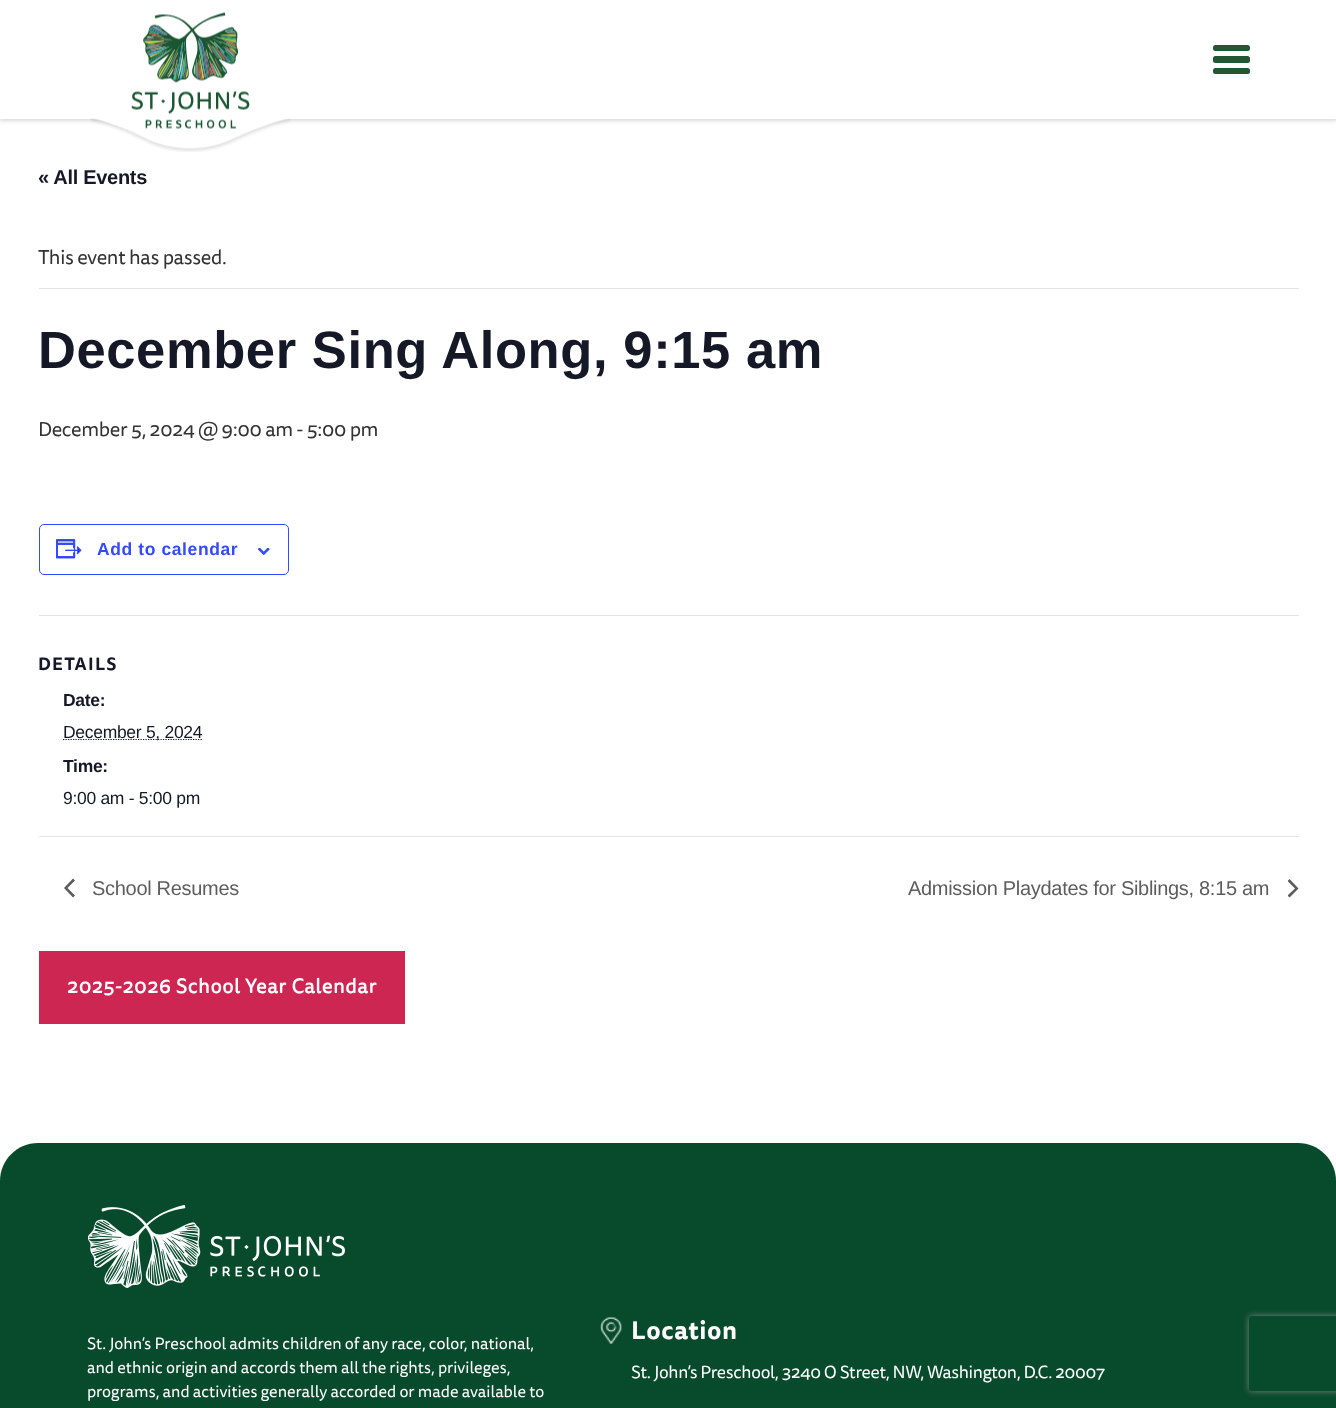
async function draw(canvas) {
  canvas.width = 1336
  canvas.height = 1408
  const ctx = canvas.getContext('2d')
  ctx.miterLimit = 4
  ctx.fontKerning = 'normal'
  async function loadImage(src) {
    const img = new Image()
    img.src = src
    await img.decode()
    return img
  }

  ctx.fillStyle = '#fff'
  ctx.fillRect(0, 0, 1336, 1408)
  ctx.fillStyle = '#00000033'
  ctx.filter = 'blur(2.5px)'
  ctx.beginPath()
  ctx.rect(-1, -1, 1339, 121)
  ctx.fill()
  ctx.filter = 'none'
  ctx.fillStyle = '#fff'
  ctx.fillRect(0, 0, 1336, 119)
  ctx.drawImage(await loadImage('image1.png'), 90, 118, 201, 34)
  ctx.drawImage(await loadImage('image0.png'), 131, 12, 119, 117)
  ctx.fillStyle = '#215732'
  ctx.beginPath()
  ctx.roundRect(1213, 45, 37, 6, 2.5)
  ctx.fill()
  ctx.beginPath()
  ctx.roundRect(1213, 56, 37, 7, 2.5)
  ctx.fill()
  ctx.beginPath()
  ctx.roundRect(1213, 68, 37, 6, 2.5)
  ctx.fill()
  ctx.letterSpacing = '-0.3px'
  ctx.font = 'bold 20px Liberation Sans'
  ctx.fillStyle = '#141827'
  ctx.fillText('« All Events', 38, 184)
  ctx.fillStyle = '#e4e4e4'
  ctx.fillRect(39, 288, 1260, 1)
  ctx.font = '20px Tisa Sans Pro'
  ctx.fillStyle = '#333'
  ctx.fillText('This event has passed.', 38, 264)
  ctx.letterSpacing = '0.6px'
  ctx.font = 'bold 52.5px Liberation Sans'
  ctx.fillStyle = '#141827'
  ctx.fillText('December Sing Along, 9:15 am', 38, 368)
  ctx.letterSpacing = '-0.3px'
  ctx.font = '20px Tisa Sans Pro'
  ctx.fillStyle = '#333'
  ctx.fillText('December 5, 2024 @ 9:00 am - 5:00 pm', 38, 436)
  ctx.beginPath()
  ctx.roundRect(39.5, 524.5, 249, 50, 4.5)
  ctx.strokeStyle = '#334aff'
  ctx.stroke()
  ctx.drawImage(await loadImage('image2.png'), 56, 539, 26, 20)
  ctx.letterSpacing = '0.6px'
  ctx.font = 'bold 17.5px Liberation Sans'
  ctx.fillStyle = '#334aff'
  ctx.fillText('Add to calendar', 97, 555)
  ctx.drawImage(await loadImage('image3.png'), 258, 548, 12, 7)
  ctx.fillStyle = '#e4e4e4'
  ctx.fillRect(39, 615, 1260, 1)
  ctx.letterSpacing = '1.25px'
  ctx.font = 'bold 17.5px "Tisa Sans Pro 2"'
  ctx.fillStyle = '#141827'
  ctx.fillText('DETAILS', 38, 670)
  ctx.letterSpacing = '-0.3px'
  ctx.font = 'bold 17.5px Liberation Sans'
  ctx.fillText('Date:', 63, 706)
  ctx.beginPath()
  ctx.moveTo(63, 739.5)
  ctx.lineTo(202.5, 739.5)
  ctx.strokeStyle = '#141827'
  ctx.lineWidth = 1.2
  ctx.setLineDash([1.25, 1.25])
  ctx.stroke()
  ctx.font = '17.5px Liberation Sans'
  ctx.fillText('December 5, 2024', 63, 738)
  ctx.font = 'bold 17.5px Liberation Sans'
  ctx.fillText('Time:', 63, 772)
  ctx.font = '17.5px Liberation Sans'
  ctx.fillText('9:00 am - 5:00 pm', 63, 804)
  ctx.fillStyle = '#e4e4e4'
  ctx.fillRect(39, 836, 1260, 1)
  ctx.fillStyle = '#5d5d5d'
  ctx.beginPath()
  ctx.moveTo(75, 895.5)
  ctx.lineTo(73, 897.5)
  ctx.lineTo(64, 888)
  ctx.lineTo(73, 878.5)
  ctx.lineTo(75, 880.5)
  ctx.lineTo(67.5, 888)
  ctx.closePath()
  ctx.fill()
  ctx.font = '20px Liberation Sans'
  ctx.fillText('School Resumes', 92, 895)
  ctx.fillText('Admission Playdates for Siblings, 8:15 am', 908, 895)
  ctx.save()
  ctx.beginPath()
  ctx.rect(1288, 879, 11, 19)
  ctx.clip()
  ctx.beginPath()
  ctx.moveTo(1287.5, 881)
  ctx.lineTo(1289.5, 879)
  ctx.lineTo(1298.5, 888.5)
  ctx.lineTo(1289.5, 897.5)
  ctx.lineTo(1287.5, 895.5)
  ctx.lineTo(1295, 888.5)
  ctx.closePath()
  ctx.fill()
  ctx.restore()
  ctx.fillStyle = '#cd2653'
  ctx.fillRect(39, 951, 366, 73)
  ctx.letterSpacing = '0.7px'
  ctx.font = 'bold 20px Tisa Sans Pro'
  ctx.fillStyle = '#fff'
  ctx.fillText('2025-2026 School Year Calendar', 67, 993)
  ctx.fillStyle = '#084b2c'
  ctx.beginPath()
  ctx.moveTo(38, 1143)
  ctx.lineTo(1298, 1143)
  ctx.bezierCurveTo(1319, 1143, 1336, 1160, 1336, 1181)
  ctx.lineTo(1336, 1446)
  ctx.lineTo(0, 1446)
  ctx.lineTo(0, 1181)
  ctx.bezierCurveTo(0, 1160, 17, 1143, 38, 1143)
  ctx.closePath()
  ctx.fill()
  ctx.drawImage(await loadImage('image4.png'), 88, 1205, 257, 83)
  ctx.letterSpacing = '0px'
  ctx.font = '16.25px Tisa Sans Pro'
  ctx.fillStyle = '#fff'
  ctx.fillText('St. John’s Preschool admits children of any race, color, national,', 87, 1349)
  ctx.fillText('and ethnic origin and accords them all the rights, privileges,', 87, 1373)
  ctx.fillText('programs, and activities generally accorded or made available to', 87, 1397)
  ctx.drawImage(await loadImage('image5.png'), 600, 1317, 22, 27)
  ctx.letterSpacing = '0.6px'
  ctx.font = 'bold 25px "Tisa Sans Pro 2"'
  ctx.fillText('Location', 631, 1339)
  ctx.letterSpacing = '-0.3px'
  ctx.font = '17.5px Tisa Sans Pro'
  ctx.fillText('St. John’s Preschool, 3240 O Street, NW, Washington, D.C. 20007', 631, 1378)
  ctx.save()
  ctx.beginPath()
  ctx.moveTo(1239, 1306)
  ctx.lineTo(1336, 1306)
  ctx.lineTo(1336, 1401)
  ctx.lineTo(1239, 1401)
  ctx.closePath()
  ctx.moveTo(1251.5, 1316)
  ctx.lineTo(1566.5, 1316)
  ctx.bezierCurveTo(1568, 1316, 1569, 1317, 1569, 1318.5)
  ctx.lineTo(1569, 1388.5)
  ctx.bezierCurveTo(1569, 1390, 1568, 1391, 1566.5, 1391)
  ctx.lineTo(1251.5, 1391)
  ctx.bezierCurveTo(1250, 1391, 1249, 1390, 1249, 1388.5)
  ctx.lineTo(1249, 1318.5)
  ctx.bezierCurveTo(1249, 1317, 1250, 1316, 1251.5, 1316)
  ctx.closePath()
  ctx.clip('evenodd')
  ctx.fillStyle = '#808080'
  ctx.filter = 'blur(3px)'
  ctx.beginPath()
  ctx.roundRect(1249, 1316, 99, 75, 2.5)
  ctx.fill()
  ctx.filter = 'none'
  ctx.restore()
}

draw(document.querySelector('canvas'))
